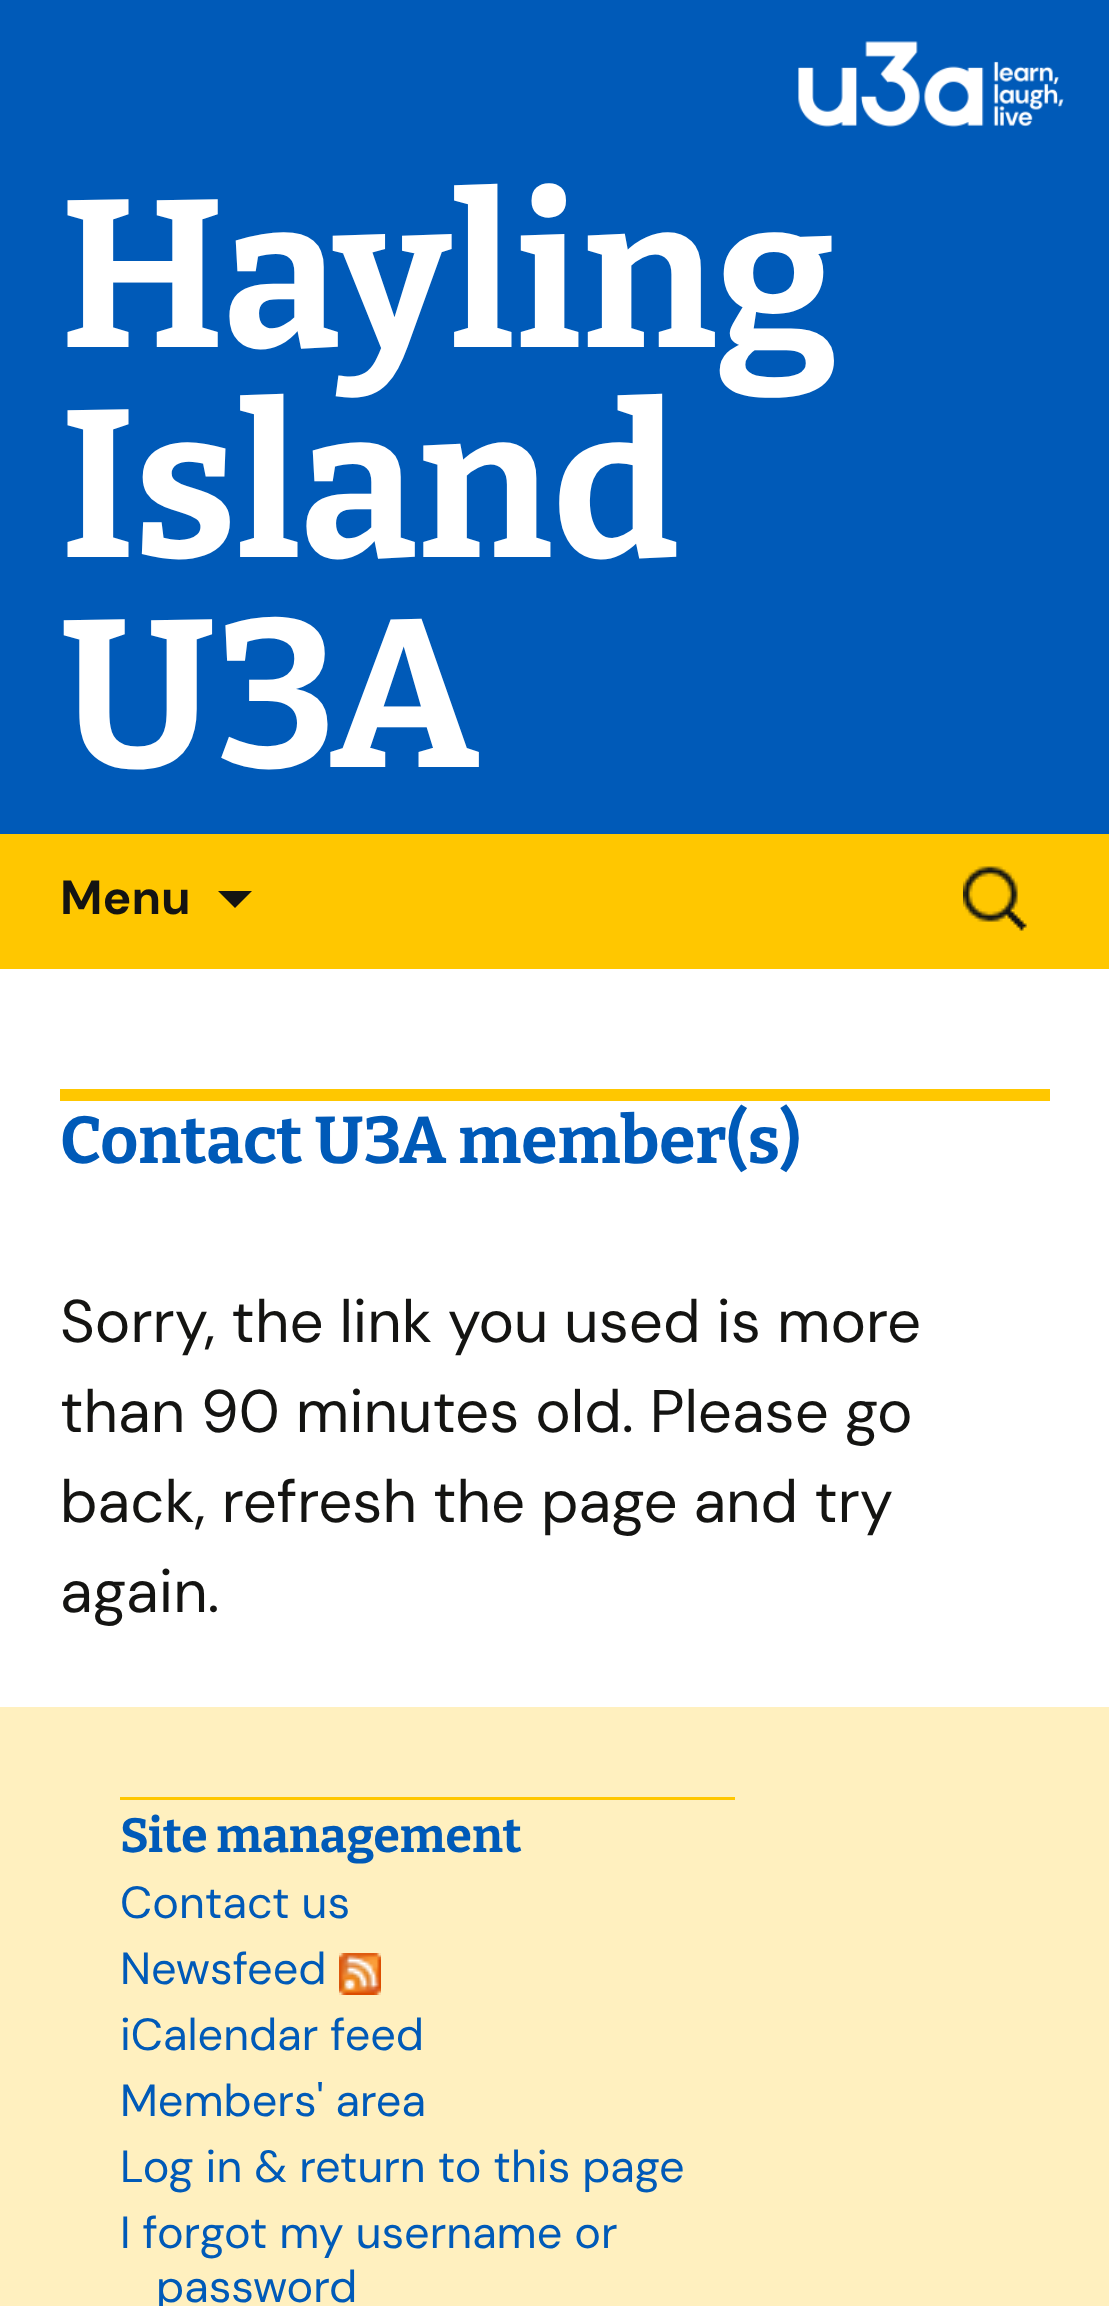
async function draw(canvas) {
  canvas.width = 1109
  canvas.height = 2306
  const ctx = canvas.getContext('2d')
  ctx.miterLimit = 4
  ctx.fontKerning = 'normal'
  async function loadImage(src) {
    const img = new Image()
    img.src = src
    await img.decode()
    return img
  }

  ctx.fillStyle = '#fff'
  ctx.fillRect(0, 0, 1109, 2306)
  ctx.fillStyle = '#005ab8'
  ctx.fillRect(0, 0, 1109, 834)
  ctx.drawImage(await loadImage('image0.png'), 798, 41, 266, 86)
  ctx.font = '100 210px Bitter'
  ctx.fillStyle = '#fff'
  ctx.fillText('Hayling', 60, 347)
  ctx.fillText('Island', 60, 557)
  ctx.fillText('U3A', 60, 767)
  ctx.fillStyle = '#ffc700'
  ctx.fillRect(0, 834, 1109, 135)
  ctx.font = 'bold 48px DM Sans'
  ctx.fillStyle = '#141412'
  ctx.fillText('Menu', 60, 914)
  ctx.beginPath()
  ctx.moveTo(218, 891)
  ctx.lineTo(235, 908)
  ctx.lineTo(252, 891)
  ctx.closePath()
  ctx.fill()
  ctx.drawImage(await loadImage('image1.png'), 963, 866, 64, 65)
  ctx.fillStyle = '#ffc700'
  ctx.fillRect(60, 1089, 990, 12)
  ctx.font = '100 66px Bitter'
  ctx.fillStyle = '#005ab8'
  ctx.fillText('Contact U3A member(s)', 60, 1163)
  ctx.font = '60px DM Sans'
  ctx.fillStyle = '#141412'
  ctx.fillText('Sorry, the link you used is more', 60, 1342)
  ctx.fillText('than 90 minutes old. Please go', 60, 1432)
  ctx.fillText('back, refresh the page and try', 60, 1522)
  ctx.fillText('again.', 60, 1612)
  ctx.fillStyle = '#fff0bf'
  ctx.fillRect(0, 1707, 1109, 599)
  ctx.fillStyle = '#ffc700'
  ctx.fillRect(120, 1797, 615, 3)
  ctx.font = '100 48px Bitter'
  ctx.fillStyle = '#005ab8'
  ctx.fillText('Site management', 120, 1852)
  ctx.font = '45px DM Sans'
  ctx.fillText('Contact us', 120, 1918)
  ctx.fillText('Newsfeed', 120, 1984)
  ctx.drawImage(await loadImage('image2.png'), 339, 1953, 42, 42)
  ctx.fillText('iCalendar feed', 120, 2050)
  ctx.fillText('Members\' area', 120, 2116)
  ctx.fillText('Log in & return to this page', 120, 2182)
  ctx.fillText('I forgot my username or', 120, 2248)
  ctx.fillText('password', 156, 2302)
}

draw(document.querySelector('canvas'))
